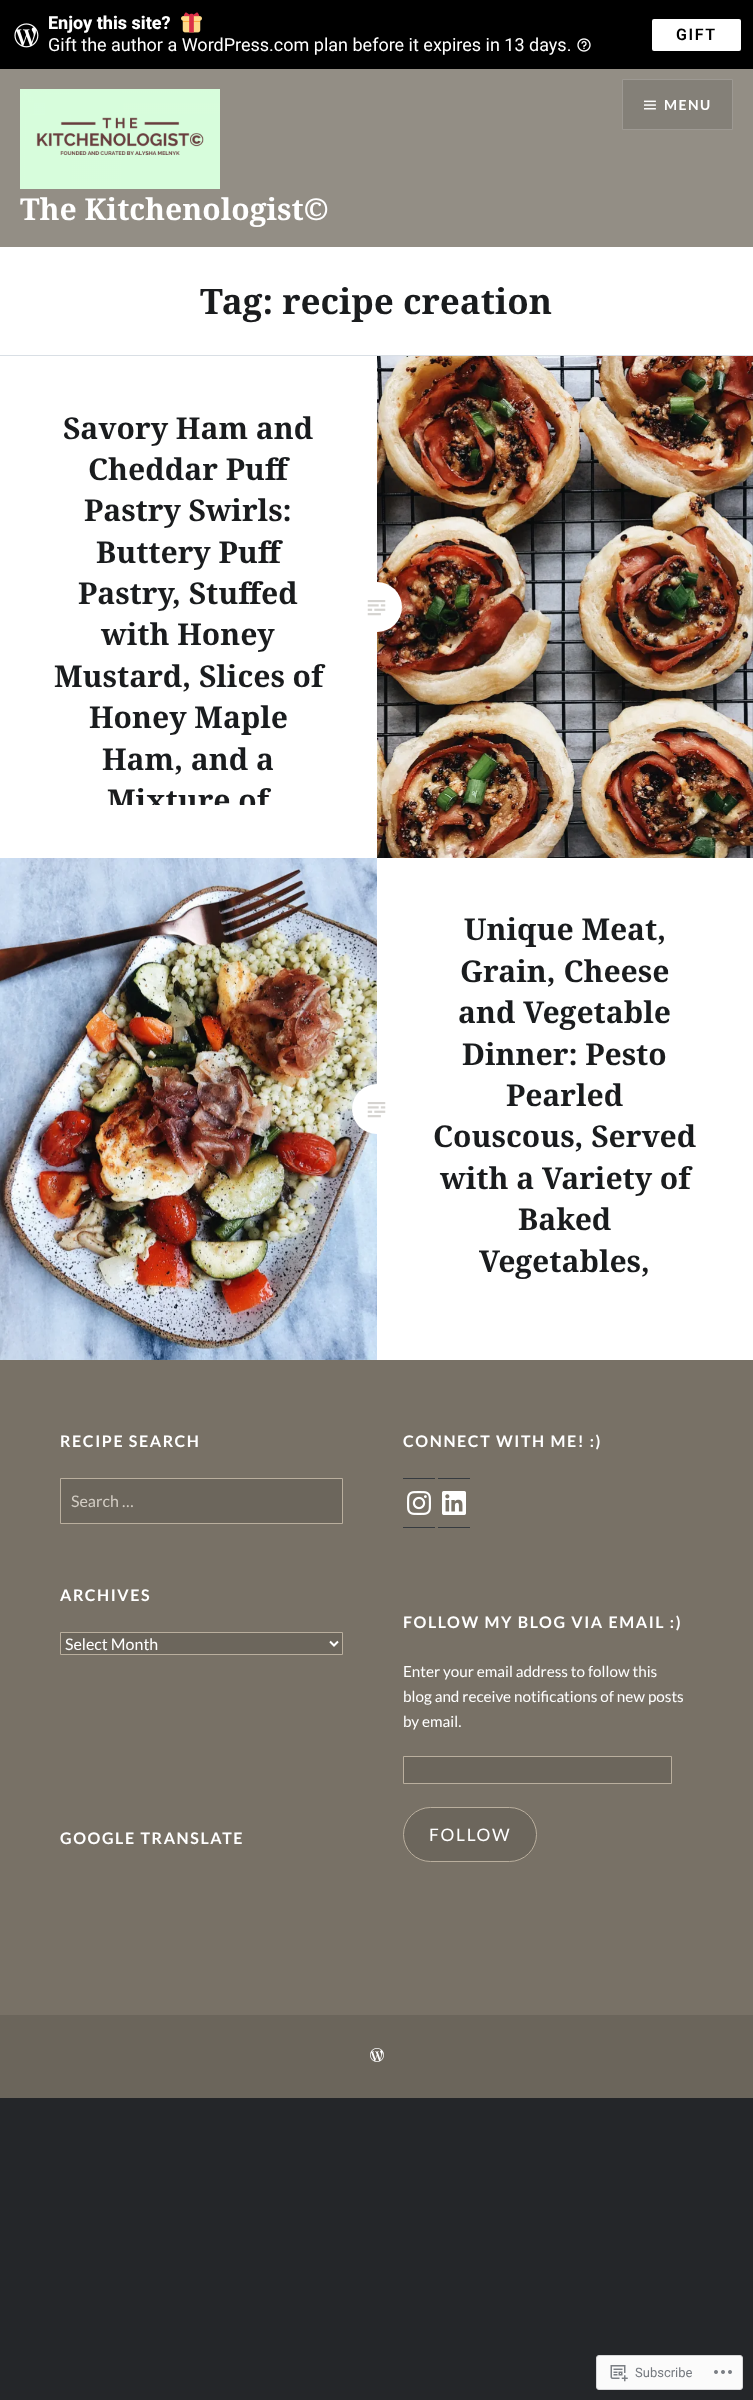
async function draw(canvas) {
  canvas.width = 753
  canvas.height = 2400
  const ctx = canvas.getContext('2d')
  ctx.miterLimit = 4
  ctx.fontKerning = 'normal'
  async function loadImage(src) {
    const img = new Image()
    img.src = src
    await img.decode()
    return img
  }

  ctx.fillStyle = '#242629'
  ctx.fillRect(0, 0, 753, 2400)
  ctx.fillStyle = '#000'
  ctx.fillRect(0, 0, 753, 69)
  ctx.drawImage(await loadImage('image0.png'), 14, 23, 25, 25)
  ctx.font = '800 18px Roboto'
  ctx.fillStyle = '#fff'
  ctx.fillText('Enjoy this site?', 48, 29)
  ctx.drawImage(await loadImage('image1.png'), 181, 12, 21, 21)
  ctx.font = '18px Roboto'
  ctx.fillText('Gift the author a WordPress.com plan before it expires in 13 days.', 48, 51)
  ctx.drawImage(await loadImage('image2.png'), 577, 38, 14, 14)
  ctx.beginPath()
  ctx.roundRect(652, 19, 89, 32, 2)
  ctx.fill()
  ctx.letterSpacing = '1.6px'
  ctx.font = '600 16px Roboto'
  ctx.fillStyle = '#000'
  ctx.fillText('GIFT', 676, 40)
  ctx.fillStyle = '#938e85'
  ctx.fillRect(0, 69, 753, 178)
  ctx.fillStyle = '#848078'
  ctx.beginPath()
  ctx.rect(622.5, 79.5, 110, 50)
  ctx.fill()
  ctx.strokeStyle = '#9d9993'
  ctx.stroke()
  ctx.drawImage(await loadImage('image3.png'), 644, 100, 12, 10)
  ctx.letterSpacing = '1.5px'
  ctx.font = 'bold 14px Lato'
  ctx.fillStyle = '#fff'
  ctx.fillText('MENU', 664, 110)
  ctx.drawImage(await loadImage('image4.png'), 20, 89, 200, 100)
  ctx.letterSpacing = '0px'
  ctx.font = 'bold 30px Noto Serif'
  ctx.fillText('The Kitchenologist©', 20, 220)
  ctx.fillRect(0, 247, 753, 108)
  ctx.fillStyle = '#d9dfe5'
  ctx.fillRect(0, 355, 753, 1)
  ctx.font = 'bold 35px Noto Serif'
  ctx.fillStyle = '#1a1c1e'
  ctx.fillText('Tag: recipe creation', 200, 314)
  ctx.fillStyle = '#fff'
  ctx.fillRect(0, 356, 377, 502)
  ctx.font = 'bold 30px Noto Serif'
  ctx.fillStyle = '#1a1c1e'
  ctx.fillText('Savory Ham and', 63, 439)
  ctx.fillText('Cheddar Puff', 88, 480)
  ctx.fillText('Pastry Swirls:', 84, 521)
  ctx.fillText('Buttery Puff', 96, 563)
  ctx.fillText('Pastry, Stuffed', 78, 604)
  ctx.fillText('with Honey', 101, 645)
  ctx.fillText('Mustard, Slices of', 54, 687)
  ctx.fillText('Honey Maple', 89, 728)
  ctx.fillText('Ham, and a', 102, 770)
  ctx.save()
  ctx.beginPath()
  ctx.rect(0, 407, 377, 398)
  ctx.clip()
  ctx.fillText('Mixture of', 107, 811)
  ctx.restore()
  ctx.drawImage(await loadImage('image6.png'), 377, 356, 376, 502)
  ctx.fillStyle = '#fff'
  ctx.beginPath()
  ctx.arc(377, 607, 25, 0, 2 * Math.PI)
  ctx.fill()
  ctx.drawImage(await loadImage('image5.png'), 367, 600, 19, 16)
  ctx.fillRect(0, 858, 753, 502)
  ctx.drawImage(await loadImage('image7.png'), 0, 858, 377, 502)
  ctx.beginPath()
  ctx.arc(377, 1109, 25, 0, 2 * Math.PI)
  ctx.fill()
  ctx.fillStyle = '#1a1c1e'
  ctx.fillText('Unique Meat,', 464, 940)
  ctx.fillText('Grain, Cheese', 460, 982)
  ctx.fillText('and Vegetable', 458, 1023)
  ctx.fillText('Dinner: Pesto', 462, 1065)
  ctx.fillText('Pearled', 506, 1106)
  ctx.fillText('Couscous, Served', 433, 1147)
  ctx.fillText('with a Variety of', 440, 1189)
  ctx.fillText('Baked', 518, 1230)
  ctx.fillText('Vegetables,', 479, 1272)
  ctx.drawImage(await loadImage('image5.png'), 367, 1102, 19, 16)
  ctx.fillStyle = '#787166'
  ctx.fillRect(0, 1360, 753, 655)
  ctx.letterSpacing = '1.6px'
  ctx.font = 'bold 16px Lato'
  ctx.fillStyle = '#fff'
  ctx.fillText('RECIPE SEARCH', 60, 1447)
  ctx.fillStyle = '#6c665c'
  ctx.beginPath()
  ctx.rect(60.5, 1478.5, 282, 45)
  ctx.fill()
  ctx.strokeStyle = '#baaf9e'
  ctx.stroke()
  ctx.letterSpacing = '0px'
  ctx.font = '16px Lato'
  ctx.fillStyle = '#d3cdc4'
  ctx.fillText('Search …', 71, 1507)
  ctx.letterSpacing = '1.6px'
  ctx.font = 'bold 16px Lato'
  ctx.fillStyle = '#fff'
  ctx.fillText('CONNECT WITH ME! :)', 403, 1447)
  ctx.fillStyle = '#363b40'
  ctx.fillRect(403, 1478, 32, 1)
  ctx.fillRect(403, 1527, 32, 1)
  ctx.drawImage(await loadImage('image8.png'), 407, 1491, 24, 24)
  ctx.fillRect(438, 1478, 32, 1)
  ctx.fillRect(438, 1527, 32, 1)
  ctx.drawImage(await loadImage('image9.png'), 442, 1491, 24, 24)
  ctx.fillStyle = '#fff'
  ctx.fillText('ARCHIVES', 60, 1601)
  ctx.fillStyle = '#6c665c'
  ctx.beginPath()
  ctx.rect(60.5, 1632.5, 282, 22)
  ctx.fill()
  ctx.stroke()
  ctx.beginPath()
  ctx.moveTo(330, 1641.5)
  ctx.lineTo(334, 1645.5)
  ctx.lineTo(338, 1641.5)
  ctx.strokeStyle = '#fff'
  ctx.lineWidth = 2
  ctx.stroke()
  ctx.letterSpacing = '0px'
  ctx.font = '16px Lato'
  ctx.fillStyle = '#fff'
  ctx.fillText('Select Month', 65, 1650)
  ctx.letterSpacing = '1.6px'
  ctx.font = 'bold 16px Lato'
  ctx.fillText('FOLLOW MY BLOG VIA EMAIL :)', 403, 1628)
  ctx.letterSpacing = '0px'
  ctx.font = '15.25px Lato'
  ctx.fillText('Enter your email address to follow this', 403, 1677)
  ctx.fillText('blog and receive notifications of new posts', 403, 1702)
  ctx.fillText('by email.', 403, 1727)
  ctx.fillStyle = '#6c665c'
  ctx.beginPath()
  ctx.rect(403.5, 1756.5, 268, 27)
  ctx.fill()
  ctx.strokeStyle = '#baaf9e'
  ctx.lineWidth = 1
  ctx.stroke()
  ctx.beginPath()
  ctx.roundRect(403.5, 1807.5, 133, 54, 27)
  ctx.fill()
  ctx.stroke()
  ctx.letterSpacing = '1.75px'
  ctx.font = '17.25px Lato'
  ctx.fillStyle = '#fff'
  ctx.fillText('FOLLOW', 429, 1841)
  ctx.letterSpacing = '1.6px'
  ctx.font = 'bold 16px Lato'
  ctx.fillText('GOOGLE TRANSLATE', 60, 1844)
  ctx.fillStyle = '#6b655b'
  ctx.fillRect(0, 2015, 753, 83)
  ctx.drawImage(await loadImage('image10.png'), 370, 2048, 14, 14)
  ctx.fillStyle = '#fbfbfb'
  ctx.beginPath()
  ctx.roundRect(596.5, 2355.5, 146, 34, 2.5)
  ctx.fill()
  ctx.strokeStyle = '#d8d8da'
  ctx.stroke()
  ctx.drawImage(await loadImage('image11.png'), 610, 2365, 18, 17)
  ctx.letterSpacing = '0px'
  ctx.font = '13px Roboto'
  ctx.fillStyle = '#767a80'
  ctx.fillText('Subscribe', 635, 2377)
  ctx.drawImage(await loadImage('image12.png'), 714, 2370, 18, 4)
}

draw(document.querySelector('canvas'))
